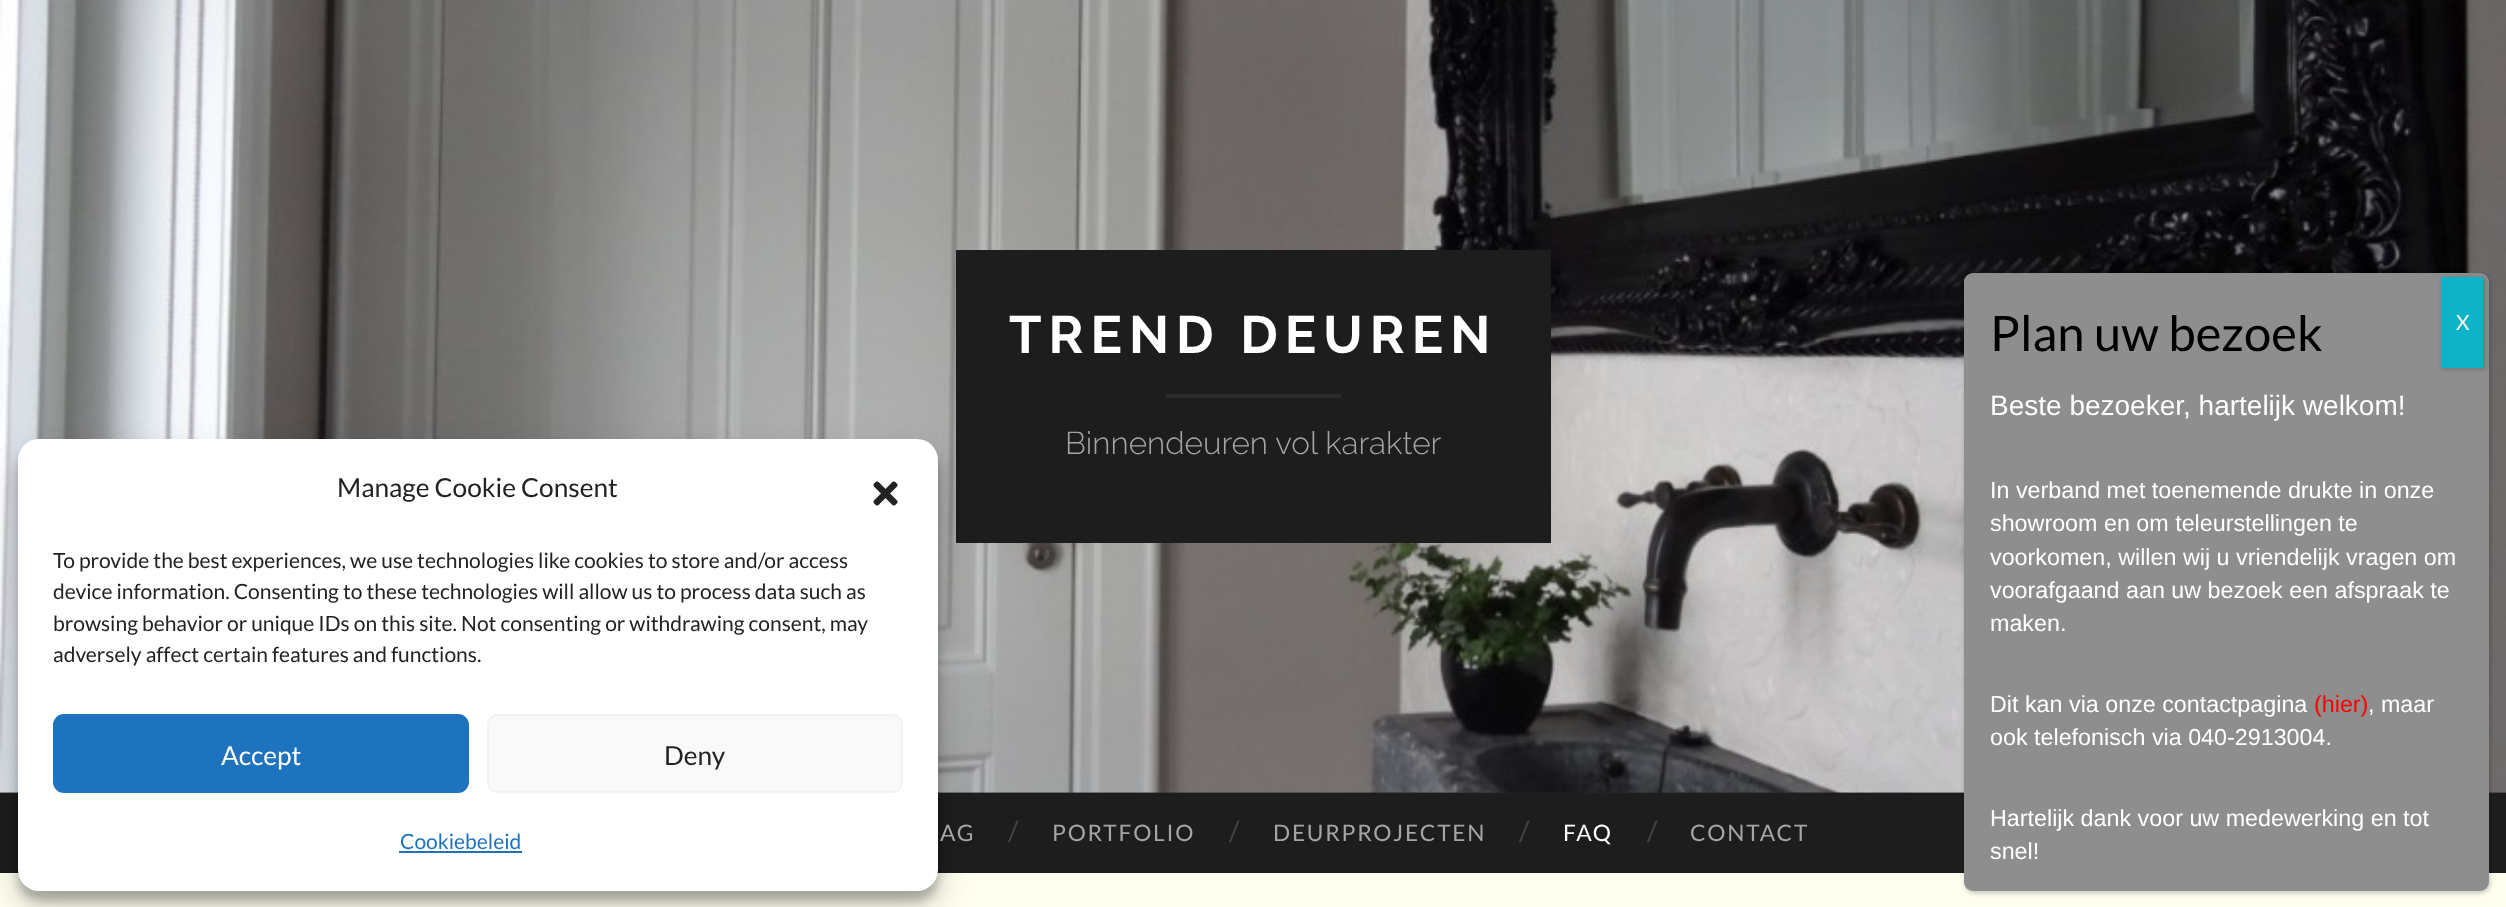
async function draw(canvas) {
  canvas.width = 2506
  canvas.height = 907
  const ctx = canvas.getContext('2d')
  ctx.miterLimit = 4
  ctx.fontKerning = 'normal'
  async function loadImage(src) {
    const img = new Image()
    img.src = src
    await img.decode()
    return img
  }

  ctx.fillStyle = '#fffff0'
  ctx.fillRect(0, 0, 2506, 907)
  ctx.fillStyle = '#262626'
  ctx.fillRect(0, 792, 2506, 1)
  ctx.drawImage(await loadImage('image1.png'), 0, 0, 2506, 793)
  ctx.fillStyle = '#1d1d1d'
  ctx.fillRect(0, 793, 2506, 80)
  ctx.fillStyle = '#0000003b'
  ctx.filter = 'blur(5px)'
  ctx.beginPath()
  ctx.roundRect(18, 450, 920, 451, 21)
  ctx.fill()
  ctx.filter = 'none'
  ctx.fillStyle = '#1d1d1d'
  ctx.fillRect(956, 250, 595, 293)
  ctx.fillStyle = '#00000030'
  ctx.filter = 'blur(17.5px)'
  ctx.beginPath()
  ctx.roundRect(18, 457, 920, 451, 21)
  ctx.fill()
  ctx.filter = 'none'
  ctx.fillStyle = '#fff'
  ctx.beginPath()
  ctx.roundRect(18, 439, 920, 452, 21)
  ctx.fill()
  ctx.font = '26.25px Lato'
  ctx.fillStyle = '#222'
  ctx.fillText('Manage Cookie Consent', 337, 497)
  ctx.drawImage(await loadImage('image0.png'), 873, 481, 25, 25)
  ctx.font = '21px Lato'
  ctx.fillText('To provide the best experiences, we use technologies like cookies to store and/or access', 53, 568)
  ctx.fillText('device information. Consenting to these technologies will allow us to process data such as', 53, 599)
  ctx.fillText('browsing behavior or unique IDs on this site. Not consenting or withdrawing consent, may', 53, 631)
  ctx.fillText('adversely affect certain features and functions.', 53, 662)
  ctx.fillStyle = '#1e73be'
  ctx.beginPath()
  ctx.roundRect(54, 715, 414, 77, 10)
  ctx.fill()
  ctx.strokeStyle = '#1e73be'
  ctx.lineWidth = 2
  ctx.stroke()
  ctx.font = '26.25px Lato'
  ctx.fillStyle = '#fff'
  ctx.fillText('Accept', 221, 765)
  ctx.fillStyle = '#f9f9f9'
  ctx.beginPath()
  ctx.roundRect(488, 715, 414, 77, 10)
  ctx.fill()
  ctx.strokeStyle = '#f2f2f2'
  ctx.stroke()
  ctx.fillStyle = '#222'
  ctx.fillText('Deny', 664, 765)
  ctx.font = '21px Lato'
  ctx.fillStyle = '#1e73be'
  ctx.fillText('Cookiebeleid', 400, 849)
  ctx.fillRect(399, 851, 123, 2)
  ctx.letterSpacing = '7px'
  ctx.font = 'bold 52.5px Raleway'
  ctx.fillStyle = '#fff'
  ctx.fillText('TREND DEUREN', 1009, 353)
  ctx.fillStyle = '#2b2b2b'
  ctx.fillRect(1166, 394, 175, 4)
  ctx.letterSpacing = '0px'
  ctx.font = '300 31.5px Raleway'
  ctx.fillStyle = '#a5a5a5'
  ctx.fillText('Binnendeuren vol karakter', 1065, 454)
  ctx.letterSpacing = '1.75px'
  ctx.font = '22.75px Lato'
  ctx.fillText('AG', 940, 841)
  ctx.letterSpacing = '0px'
  ctx.font = '28px Lato'
  ctx.fillStyle = '#444'
  ctx.fillText('/', 1008, 841)
  ctx.letterSpacing = '1.75px'
  ctx.font = '22.75px Lato'
  ctx.fillStyle = '#a5a5a5'
  ctx.fillText('PORTFOLIO', 1052, 841)
  ctx.letterSpacing = '0px'
  ctx.font = '28px Lato'
  ctx.fillStyle = '#444'
  ctx.fillText('/', 1229, 841)
  ctx.letterSpacing = '1.75px'
  ctx.font = '22.75px Lato'
  ctx.fillStyle = '#a5a5a5'
  ctx.fillText('DEURPROJECTEN', 1273, 841)
  ctx.letterSpacing = '0px'
  ctx.font = '28px Lato'
  ctx.fillStyle = '#444'
  ctx.fillText('/', 1519, 841)
  ctx.letterSpacing = '1.75px'
  ctx.font = '22.75px Lato'
  ctx.fillStyle = '#fff'
  ctx.fillText('FAQ', 1563, 841)
  ctx.letterSpacing = '0px'
  ctx.font = '28px Lato'
  ctx.fillStyle = '#444'
  ctx.fillText('/', 1647, 841)
  ctx.letterSpacing = '1.75px'
  ctx.font = '22.75px Lato'
  ctx.fillStyle = '#a5a5a5'
  ctx.fillText('CONTACT', 1690, 841)
  ctx.fillStyle = '#0202023b'
  ctx.filter = 'blur(2.5px)'
  ctx.beginPath()
  ctx.roundRect(1965, 275, 525, 618, 9)
  ctx.fill()
  ctx.filter = 'none'
  ctx.fillStyle = '#8e8e8e'
  ctx.beginPath()
  ctx.roundRect(1964, 273, 525, 618, 9)
  ctx.fill()
  ctx.letterSpacing = '0px'
  ctx.font = '49px Lato'
  ctx.fillStyle = '#000'
  ctx.fillText('Plan uw bezoek', 1990, 351)
  ctx.fillStyle = '#02020236'
  ctx.filter = 'blur(2.5px)'
  ctx.beginPath()
  ctx.rect(2443, 278, 42, 91)
  ctx.fill()
  ctx.filter = 'none'
  ctx.fillStyle = '#0eb3c7'
  ctx.fillRect(2441, 277, 42, 91)
  ctx.font = '21px Lato'
  ctx.fillStyle = '#f4f4f4'
  ctx.fillText('X', 2456, 330)
  ctx.font = '28px Liberation Sans'
  ctx.fillStyle = '#fff'
  ctx.fillText('Beste bezoeker, hartelijk welkom!', 1990, 415)
  ctx.font = '23.3px Liberation Sans'
  ctx.fillText('In verband met toenemende drukte in onze', 1990, 498)
  ctx.fillText('showroom en om teleurstellingen te', 1990, 531)
  ctx.fillText('voorkomen, willen wij u vriendelijk vragen om', 1990, 565)
  ctx.fillText('voorafgaand aan uw bezoek een afspraak te', 1990, 598)
  ctx.fillText('maken.', 1990, 631)
  ctx.fillText('Dit kan via onze contactpagina', 1990, 712)
  ctx.fillStyle = '#f00'
  ctx.fillText('(hier)', 2314, 712)
  ctx.fillStyle = '#fff'
  ctx.fillText(', maar', 2368, 712)
  ctx.fillText('ook telefonisch via 040-2913004.', 1990, 745)
  ctx.fillText('Hartelijk dank voor uw medewerking en tot', 1990, 826)
  ctx.fillText('snel!', 1990, 859)
}

draw(document.querySelector('canvas'))
